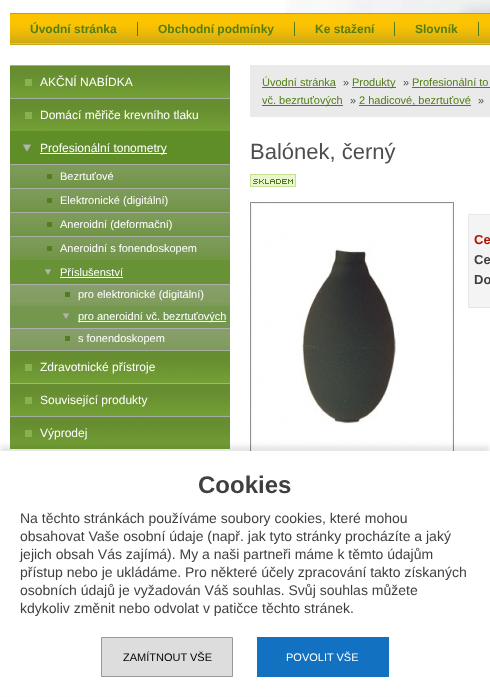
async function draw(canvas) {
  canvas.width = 490
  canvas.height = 697
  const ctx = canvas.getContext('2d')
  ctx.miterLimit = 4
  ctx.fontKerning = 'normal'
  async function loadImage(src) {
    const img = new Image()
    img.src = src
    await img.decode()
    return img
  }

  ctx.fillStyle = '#fff'
  ctx.fillRect(0, 0, 490, 697)
  ctx.drawImage(await loadImage('image0.png'), 285, 0, 205, 13)
  ctx.drawImage(await loadImage('image1.png'), 10, 13, 480, 32)
  ctx.font = 'bold 12px Liberation Sans'
  ctx.fillStyle = '#517e15'
  ctx.fillText('Úvodní stránka', 30, 33)
  ctx.fillRect(137, 22, 1, 14)
  ctx.fillText('Obchodní podmínky', 158, 33)
  ctx.fillRect(294, 22, 1, 14)
  ctx.fillText('Ke stažení', 315, 33)
  ctx.fillRect(394, 22, 1, 14)
  ctx.fillText('Slovník', 415, 33)
  ctx.fillRect(478, 22, 1, 14)
  ctx.drawImage(await loadImage('image2.png'), 10, 65, 220, 33)
  ctx.font = '12px Liberation Sans'
  ctx.fillStyle = '#fff'
  ctx.fillText('AKČNÍ NABÍDKA', 40, 86)
  ctx.drawImage(await loadImage('image2.png'), 10, 98, 220, 33)
  ctx.fillText('Domácí měřiče krevního tlaku', 40, 119)
  ctx.drawImage(await loadImage('image3.png'), 10, 131, 220, 33)
  ctx.fillRect(40, 153, 127, 1)
  ctx.fillText('Profesionální tonometry', 40, 152)
  ctx.drawImage(await loadImage('image4.png'), 10, 164, 220, 24)
  ctx.font = '11px Liberation Sans'
  ctx.fillText('Bezrtuťové', 60, 180)
  ctx.drawImage(await loadImage('image4.png'), 10, 188, 220, 24)
  ctx.fillText('Elektronické (digitální)', 60, 204)
  ctx.drawImage(await loadImage('image4.png'), 10, 212, 220, 24)
  ctx.fillText('Aneroidní (deformační)', 60, 228)
  ctx.drawImage(await loadImage('image4.png'), 10, 236, 220, 24)
  ctx.fillText('Aneroidní s fonendoskopem', 60, 252)
  ctx.drawImage(await loadImage('image5.png'), 10, 260, 220, 24)
  ctx.fillText('Příslušenství', 60, 276)
  ctx.fillRect(60, 277, 63, 1)
  ctx.drawImage(await loadImage('image6.png'), 10, 284, 220, 22)
  ctx.fillText('pro elektronické (digitální)', 78, 298)
  ctx.drawImage(await loadImage('image7.png'), 10, 306, 220, 22)
  ctx.fillRect(78, 321, 148, 1)
  ctx.fillText('pro aneroidní vč. bezrtuťových', 78, 320)
  ctx.drawImage(await loadImage('image6.png'), 10, 328, 220, 22)
  ctx.fillText('s fonendoskopem', 78, 342)
  ctx.drawImage(await loadImage('image2.png'), 10, 350, 220, 33)
  ctx.font = '12px Liberation Sans'
  ctx.fillText('Zdravotnické přístroje', 40, 371)
  ctx.drawImage(await loadImage('image2.png'), 10, 383, 220, 33)
  ctx.fillText('Související produkty', 40, 404)
  ctx.drawImage(await loadImage('image2.png'), 10, 416, 220, 33)
  ctx.fillText('Výprodej', 40, 437)
  ctx.fillStyle = '#eaeaea'
  ctx.fillRect(250, 65, 240, 52)
  ctx.font = '11px Liberation Sans'
  ctx.fillStyle = '#517e15'
  ctx.fillText('Úvodní stránka', 262, 86)
  ctx.fillRect(262, 87, 74, 1)
  ctx.fillStyle = '#4d4d4d'
  ctx.fillText('»', 343, 86)
  ctx.fillStyle = '#517e15'
  ctx.fillRect(352, 87, 44, 1)
  ctx.fillText('Produkty', 352, 86)
  ctx.fillStyle = '#4d4d4d'
  ctx.fillText('»', 403, 86)
  ctx.fillStyle = '#517e15'
  ctx.fillText('Profesionální to', 412, 86)
  ctx.fillRect(412, 87, 78, 1)
  ctx.fillRect(262, 105, 81, 1)
  ctx.fillText('vč. bezrtuťových', 262, 104)
  ctx.fillStyle = '#4d4d4d'
  ctx.fillText('»', 350, 104)
  ctx.fillStyle = '#517e15'
  ctx.fillRect(359, 105, 112, 1)
  ctx.fillText('2 hadicové, bezrtuťové', 359, 104)
  ctx.fillStyle = '#4d4d4d'
  ctx.fillText('»', 478, 104)
  ctx.font = '22px Liberation Sans'
  ctx.fillText('Balónek, černý', 250, 159)
  ctx.drawImage(await loadImage('image8.png'), 250, 174, 46, 13)
  ctx.fillStyle = '#f4f4f4'
  ctx.fillRect(251, 203, 202, 248)
  ctx.strokeStyle = '#8f8f8f'
  ctx.strokeRect(250.5, 202.5, 203, 270)
  ctx.drawImage(await loadImage('image9.png'), 252, 204, 200, 247)
  ctx.beginPath()
  ctx.rect(468.5, 214.5, 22, 93)
  ctx.fill()
  ctx.strokeStyle = '#e6e6e6'
  ctx.stroke()
  ctx.font = 'bold 13px Liberation Sans'
  ctx.fillStyle = '#b61000'
  ctx.fillText('Ce', 474, 244)
  ctx.fillStyle = '#3f3f3f'
  ctx.fillText('Ce', 474, 264)
  ctx.fillText('Do', 474, 284)
  ctx.fillStyle = '#0000001a'
  ctx.filter = 'blur(2.5px)'
  ctx.beginPath()
  ctx.rect(0, 446, 490, 246)
  ctx.fill()
  ctx.filter = 'none'
  ctx.fillStyle = '#fff'
  ctx.fillRect(0, 451, 490, 244)
  ctx.font = 'bold 24px Liberation Sans'
  ctx.fillStyle = '#3f3f3f'
  ctx.fillText('Cookies', 198, 493)
  ctx.font = '14px Liberation Sans'
  ctx.fillText('Na těchto stránkách používáme soubory cookies, které mohou', 20, 523)
  ctx.fillText('obsahovat Vaše osobní údaje (např. jak tyto stránky procházíte a jaký', 20, 541)
  ctx.fillText('jejich obsah Vás zajímá). My a naši partneři máme k těmto údajům', 20, 559)
  ctx.fillText('přístup nebo je ukládáme. Pro některé účely zpracování takto získaných', 20, 577)
  ctx.fillText('osobních údajů je vyžadován Váš souhlas. Svůj souhlas můžete', 20, 595)
  ctx.fillText('kdykoliv změnit nebo odvolat v patičce těchto stránek.', 20, 613)
  ctx.fillStyle = '#ddd'
  ctx.beginPath()
  ctx.rect(101.5, 637.5, 131, 39)
  ctx.fill()
  ctx.strokeStyle = '#999'
  ctx.stroke()
  ctx.font = '11px Liberation Sans'
  ctx.fillStyle = '#000'
  ctx.fillText('ZAMÍTNOUT VŠE', 123, 661)
  ctx.fillStyle = '#1371c2'
  ctx.fillRect(257, 637, 132, 40)
  ctx.fillStyle = '#fff'
  ctx.fillText('POVOLIT VŠE', 286, 661)
}

draw(document.querySelector('canvas'))
